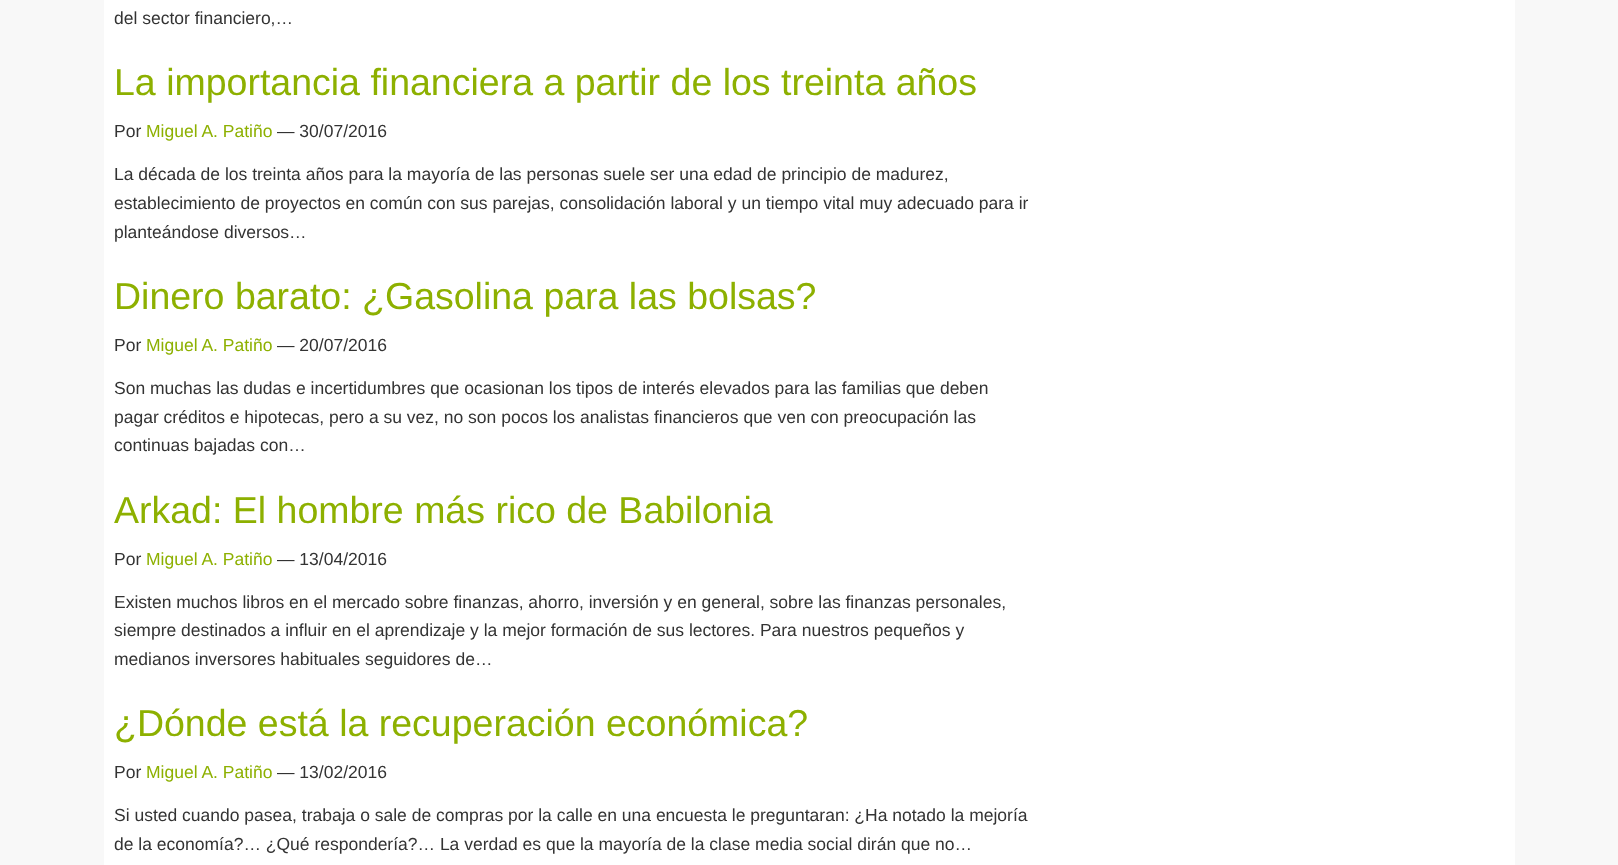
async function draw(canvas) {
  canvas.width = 1618
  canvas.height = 865
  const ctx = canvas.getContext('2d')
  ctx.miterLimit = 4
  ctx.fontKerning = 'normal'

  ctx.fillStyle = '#f8f8f8'
  ctx.fillRect(0, 0, 1618, 865)
  ctx.fillStyle = '#fff'
  ctx.fillRect(104, 0, 1411, 865)
  ctx.font = '17.5px Liberation Sans'
  ctx.fillStyle = '#333'
  ctx.fillText('del sector financiero,…', 114, 24)
  ctx.font = '37.5px Liberation Sans'
  ctx.fillStyle = '#8db000'
  ctx.fillText('La importancia financiera a partir de los treinta años', 114, 95)
  ctx.font = '17.5px Liberation Sans'
  ctx.fillStyle = '#333'
  ctx.fillText('Por', 114, 137)
  ctx.fillStyle = '#8db000'
  ctx.fillText('Miguel A. Patiño', 146, 137)
  ctx.fillStyle = '#333'
  ctx.fillText('— 30/07/2016', 277, 137)
  ctx.fillText('La década de los treinta años para la mayoría de las personas suele ser una edad de principio de madurez,', 114, 180)
  ctx.fillText('establecimiento de proyectos en común con sus parejas, consolidación laboral y un tiempo vital muy adecuado para ir', 114, 209)
  ctx.fillText('planteándose diversos…', 114, 238)
  ctx.font = '37.5px Liberation Sans'
  ctx.fillStyle = '#8db000'
  ctx.fillText('Dinero barato: ¿Gasolina para las bolsas?', 114, 309)
  ctx.font = '17.5px Liberation Sans'
  ctx.fillStyle = '#333'
  ctx.fillText('Por', 114, 351)
  ctx.fillStyle = '#8db000'
  ctx.fillText('Miguel A. Patiño', 146, 351)
  ctx.fillStyle = '#333'
  ctx.fillText('— 20/07/2016', 277, 351)
  ctx.fillText('Son muchas las dudas e incertidumbres que ocasionan los tipos de interés elevados para las familias que deben', 114, 394)
  ctx.fillText('pagar créditos e hipotecas, pero a su vez, no son pocos los analistas financieros que ven con preocupación las', 114, 423)
  ctx.fillText('continuas bajadas con…', 114, 451)
  ctx.font = '37.5px Liberation Sans'
  ctx.fillStyle = '#8db000'
  ctx.fillText('Arkad: El hombre más rico de Babilonia', 114, 523)
  ctx.font = '17.5px Liberation Sans'
  ctx.fillStyle = '#333'
  ctx.fillText('Por', 114, 565)
  ctx.fillStyle = '#8db000'
  ctx.fillText('Miguel A. Patiño', 146, 565)
  ctx.fillStyle = '#333'
  ctx.fillText('— 13/04/2016', 277, 565)
  ctx.fillText('Existen muchos libros en el mercado sobre finanzas, ahorro, inversión y en general, sobre las finanzas personales,', 114, 608)
  ctx.fillText('siempre destinados a influir en el aprendizaje y la mejor formación de sus lectores. Para nuestros pequeños y', 114, 636)
  ctx.fillText('medianos inversores habituales seguidores de…', 114, 665)
  ctx.font = '37.5px Liberation Sans'
  ctx.fillStyle = '#8db000'
  ctx.fillText('¿Dónde está la recuperación económica?', 114, 736)
  ctx.font = '17.5px Liberation Sans'
  ctx.fillStyle = '#333'
  ctx.fillText('Por', 114, 778)
  ctx.fillStyle = '#8db000'
  ctx.fillText('Miguel A. Patiño', 146, 778)
  ctx.fillStyle = '#333'
  ctx.fillText('— 13/02/2016', 277, 778)
  ctx.fillText('Si usted cuando pasea, trabaja o sale de compras por la calle en una encuesta le preguntaran: ¿Ha notado la mejoría', 114, 821)
  ctx.fillText('de la economía?… ¿Qué respondería?… La verdad es que la mayoría de la clase media social dirán que no…', 114, 850)
}

draw(document.querySelector('canvas'))
